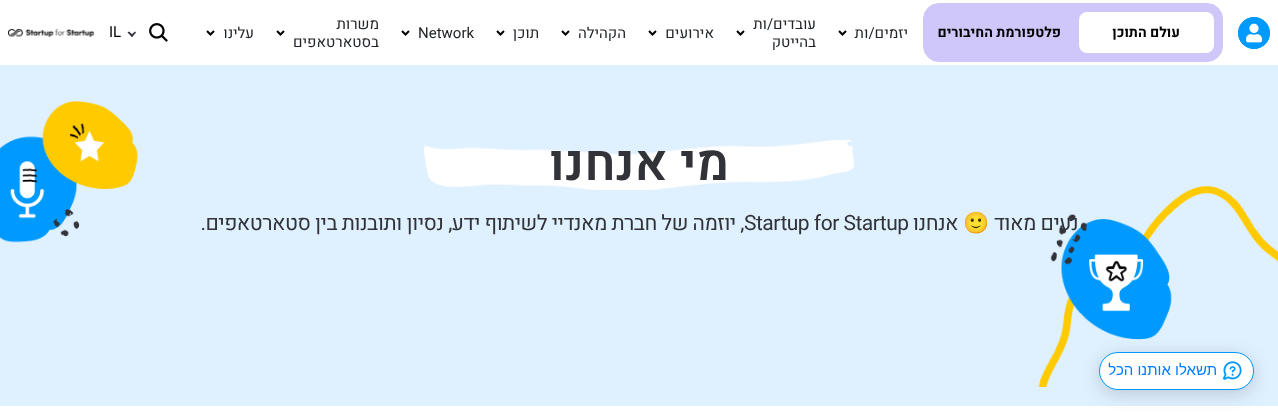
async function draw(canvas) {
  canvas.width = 1278
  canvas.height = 414
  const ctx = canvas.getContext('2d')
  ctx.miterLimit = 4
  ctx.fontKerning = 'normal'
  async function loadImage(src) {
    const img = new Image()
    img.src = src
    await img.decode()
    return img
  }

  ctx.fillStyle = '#fff'
  ctx.fillRect(0, 0, 1278, 414)
  ctx.fillStyle = '#009aff'
  ctx.beginPath()
  ctx.arc(1254, 33, 16, 0, 2 * Math.PI)
  ctx.fill()
  ctx.drawImage(await loadImage('image0.png'), 1238, 17, 32, 32)
  ctx.fillStyle = '#cfc6fa'
  ctx.beginPath()
  ctx.roundRect(923.5, 3.5, 299, 58, 15.5)
  ctx.fill()
  ctx.strokeStyle = '#cfc6fa'
  ctx.stroke()
  ctx.fillStyle = '#fff'
  ctx.beginPath()
  ctx.roundRect(1079, 12, 135, 41, 8)
  ctx.fill()
  ctx.direction = 'rtl'
  ctx.font = 'bold 14px Heebo'
  ctx.fillStyle = '#020202'
  ctx.fillText('עולם התוכן', 1180, 37)
  ctx.fillText('פלטפורמת החיבורים', 1061, 37)
  ctx.font = '15px Heebo'
  ctx.fillStyle = '#212529'
  ctx.fillText('יזמים/ות', 908, 38)
  ctx.beginPath()
  ctx.moveTo(839, 31)
  ctx.lineTo(842.5, 34.5)
  ctx.lineTo(846, 31)
  ctx.strokeStyle = '#000'
  ctx.lineWidth = 2
  ctx.stroke()
  ctx.fillText('עובדים/ות', 816, 29)
  ctx.beginPath()
  ctx.moveTo(737, 31)
  ctx.lineTo(740.5, 34.5)
  ctx.lineTo(744, 31)
  ctx.stroke()
  ctx.fillText('בהייטק', 816, 47)
  ctx.fillText('אירועים', 714, 38)
  ctx.beginPath()
  ctx.moveTo(649, 31)
  ctx.lineTo(652.5, 34.5)
  ctx.lineTo(656, 31)
  ctx.stroke()
  ctx.fillText('הקהילה', 626, 38)
  ctx.beginPath()
  ctx.moveTo(562, 31)
  ctx.lineTo(565.5, 34.5)
  ctx.lineTo(569, 31)
  ctx.stroke()
  ctx.fillText('תוכן', 539, 38)
  ctx.beginPath()
  ctx.moveTo(497, 31)
  ctx.lineTo(500.5, 34.5)
  ctx.lineTo(504, 31)
  ctx.stroke()
  ctx.direction = 'ltr'
  ctx.fillText('Network', 418, 38)
  ctx.beginPath()
  ctx.moveTo(402, 31)
  ctx.lineTo(405.5, 34.5)
  ctx.lineTo(409, 31)
  ctx.stroke()
  ctx.direction = 'rtl'
  ctx.fillText('משרות', 379, 29)
  ctx.beginPath()
  ctx.moveTo(277, 31)
  ctx.lineTo(280.5, 34.5)
  ctx.lineTo(284, 31)
  ctx.stroke()
  ctx.fillText('בסטארטאפים', 379, 47)
  ctx.fillText('עלינו', 254, 38)
  ctx.beginPath()
  ctx.moveTo(207, 31)
  ctx.lineTo(210.5, 34.5)
  ctx.lineTo(214, 31)
  ctx.stroke()
  ctx.drawImage(await loadImage('image1.png'), 149, 23, 19, 19)
  ctx.fillStyle = '#323338'
  ctx.beginPath()
  ctx.moveTo(135, 31.5)
  ctx.lineTo(136, 32.5)
  ctx.lineTo(132, 37)
  ctx.lineTo(130.5, 35.5)
  ctx.closePath()
  ctx.fill()
  ctx.beginPath()
  ctx.moveTo(129, 31.5)
  ctx.lineTo(133.5, 35.5)
  ctx.lineTo(132, 37)
  ctx.lineTo(127.5, 32.5)
  ctx.closePath()
  ctx.fill()
  ctx.direction = 'ltr'
  ctx.fillStyle = '#020202'
  ctx.fillText('IL', 109, 37)
  ctx.drawImage(await loadImage('image2.png'), 8, 29, 86, 8)
  ctx.fillStyle = '#dff0ff'
  ctx.fillRect(0, 65, 1278, 341)
  ctx.drawImage(await loadImage('image3.png'), 0, 101, 1278, 286)
  ctx.drawImage(await loadImage('image4.png'), 424, 140, 430, 50)
  ctx.direction = 'rtl'
  ctx.font = '600 50px Heebo'
  ctx.fillStyle = '#323338'
  ctx.fillText('מי אנחנו', 729, 180)
  ctx.letterSpacing = '-0.5px'
  ctx.font = '21px Heebo'
  ctx.fillText('נעים מאוד', 1078, 230)
  ctx.font = '21px Noto Color Emoji'
  ctx.fillText('🙂', 989, 230)
  ctx.font = '21px Heebo'
  ctx.fillText('אנחנו', 958, 230)
  ctx.direction = 'ltr'
  ctx.fillText('Startup for Startup', 744, 230)
  ctx.direction = 'rtl'
  ctx.fillText(', יוזמה של חברת מאנדיי לשיתוף ידע, נסיון ותובנות בין סטארטאפים.', 744, 230)
  ctx.fillStyle = '#00000029'
  ctx.filter = 'blur(9px)'
  ctx.beginPath()
  ctx.roundRect(1099, 356, 155, 38, 19)
  ctx.fill()
  ctx.filter = 'none'
  ctx.fillStyle = '#fff'
  ctx.beginPath()
  ctx.roundRect(1099.5, 352.5, 154, 37, 18.5)
  ctx.fill()
  ctx.strokeStyle = '#009aff'
  ctx.lineWidth = 1
  ctx.stroke()
  ctx.drawImage(await loadImage('image5.png'), 1223, 361, 19, 19)
  ctx.letterSpacing = '0px'
  ctx.font = '15px Liberation Sans'
  ctx.fillStyle = '#007bff'
  ctx.fillText('תשאלו אותנו הכל', 1217, 375)
}

draw(document.querySelector('canvas'))
